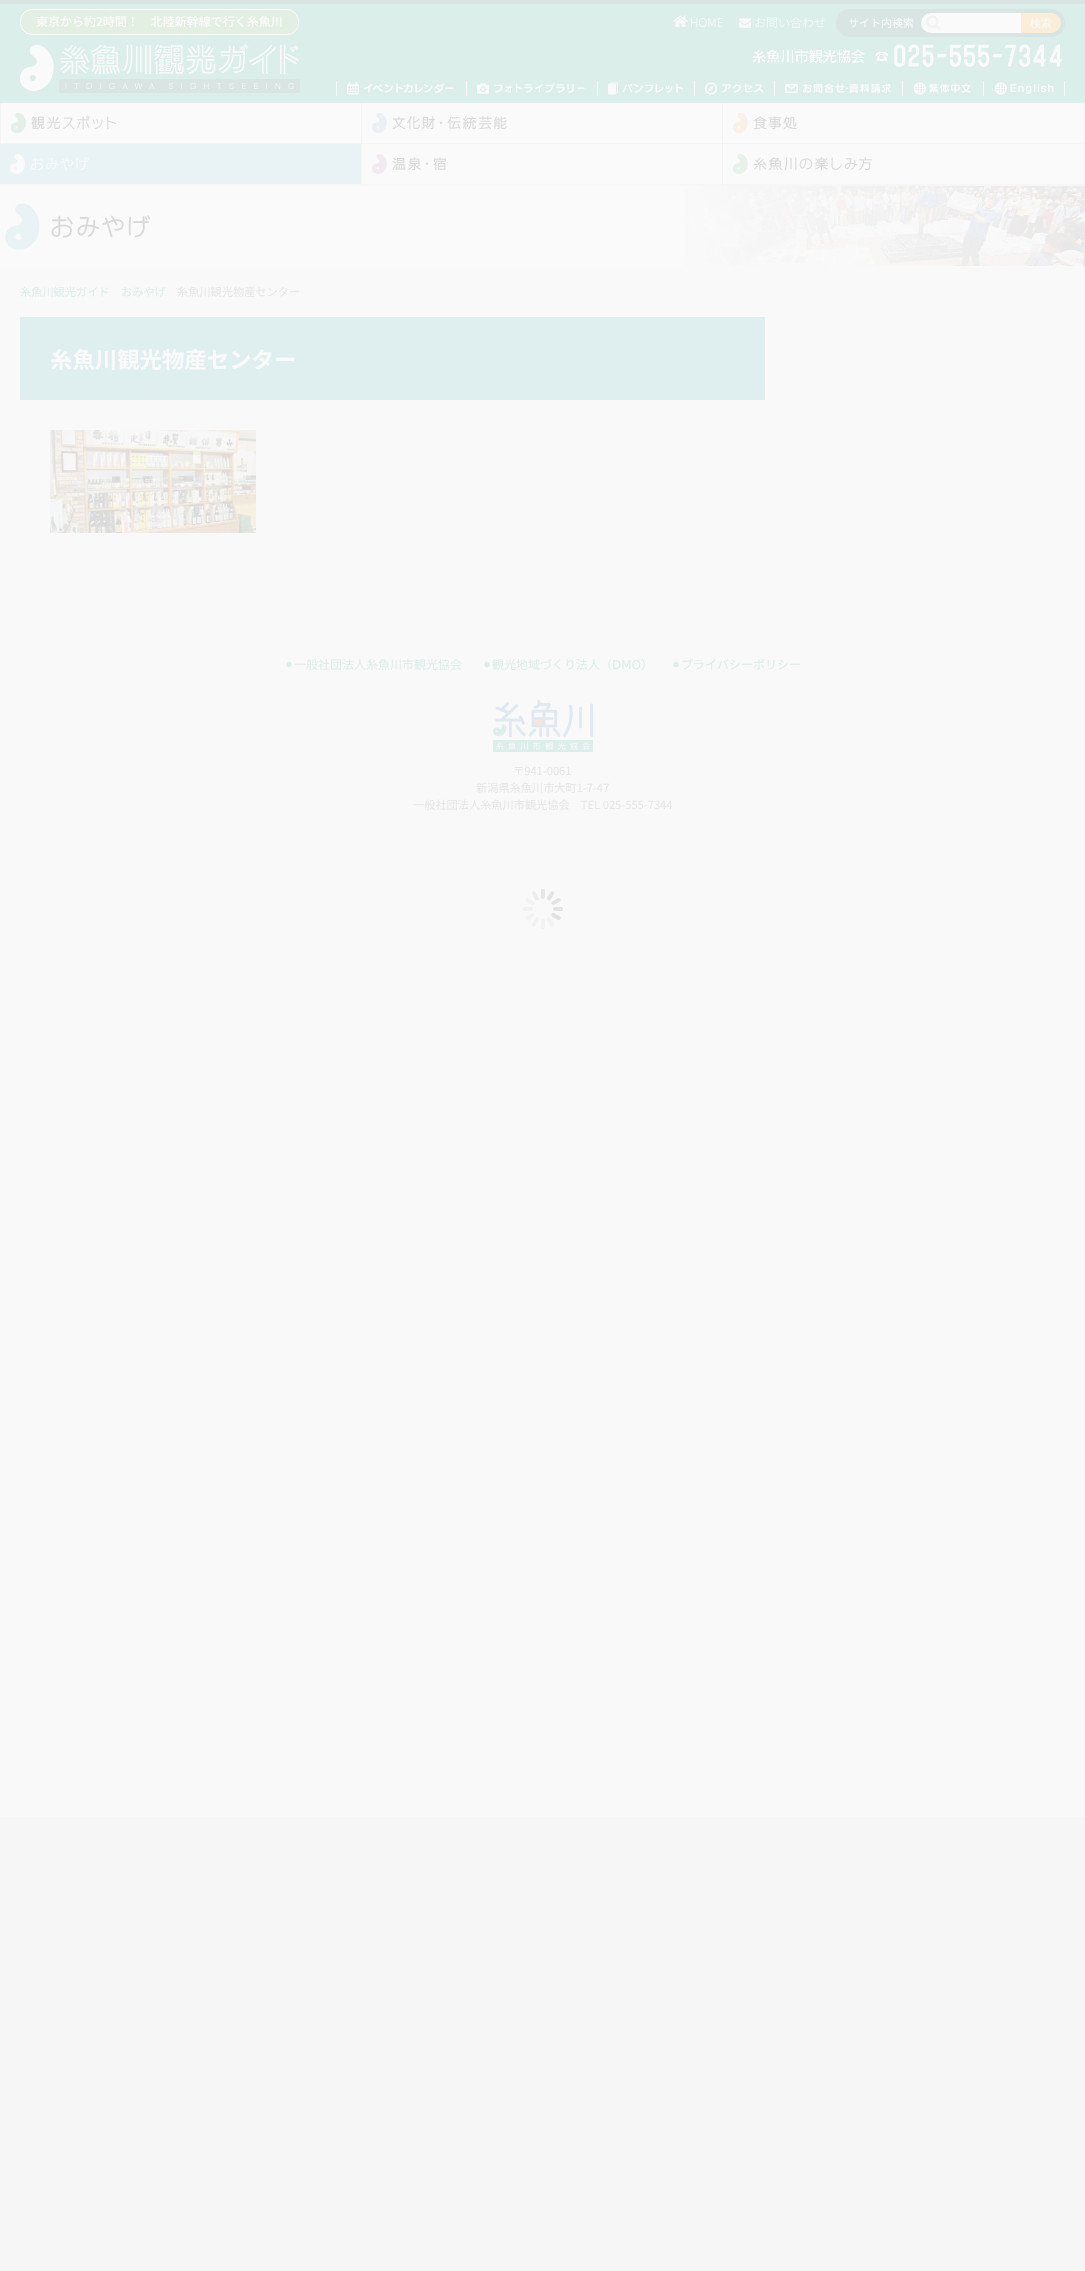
async function draw(canvas) {
  canvas.width = 1085
  canvas.height = 2271
  const ctx = canvas.getContext('2d')
  ctx.miterLimit = 4
  ctx.fontKerning = 'normal'
  async function loadImage(src) {
    const img = new Image()
    img.src = src
    await img.decode()
    return img
  }

  ctx.fillStyle = '#f6f6f6'
  ctx.fillRect(0, 0, 1085, 2271)
  ctx.fillStyle = '#f9f9f9'
  ctx.fillRect(0, 266, 1085, 1551)
  ctx.fillStyle = '#dbeeea'
  ctx.fillRect(0, 4, 1085, 99)
  ctx.fillStyle = '#d9e5e3'
  ctx.fillRect(0, 0, 1085, 4)
  ctx.fillStyle = '#e3efe2'
  ctx.beginPath()
  ctx.roundRect(20.5, 9.5, 278, 25, 11.5)
  ctx.fill()
  ctx.strokeStyle = '#fafafa'
  ctx.stroke()
  ctx.font = '500 12px Noto Sans JP'
  ctx.fillStyle = '#fafafa'
  ctx.fillText('東京から約2時間！　北陸新幹線で行く糸魚川', 36, 26)
  ctx.drawImage(await loadImage('image0.png'), 20, 44, 280, 49)
  ctx.drawImage(await loadImage('image1.png'), 673, 15, 15, 12)
  ctx.font = '300 12px Noto Sans JP'
  ctx.fillText('HOME', 690, 27)
  ctx.drawImage(await loadImage('image2.png'), 739, 18, 12, 10)
  ctx.fillText('お問い合わせ', 754, 27)
  ctx.fillStyle = '#d9e5e3'
  ctx.beginPath()
  ctx.roundRect(836, 9, 229, 28, 14)
  ctx.fill()
  ctx.font = '11px Noto Sans JP'
  ctx.fillStyle = '#fafafa'
  ctx.fillText('サイト内検索', 848, 27)
  ctx.beginPath()
  ctx.roundRect(921, 13, 100, 20, [10, 0, 0, 10])
  ctx.fill()
  ctx.drawImage(await loadImage('image3.png'), 926, 15, 15, 16)
  ctx.fillStyle = '#faedd9'
  ctx.beginPath()
  ctx.roundRect(1021, 13, 40, 20, [0, 10, 10, 0])
  ctx.fill()
  ctx.font = '500 11px WenQuanYi Zen Hei'
  ctx.fillStyle = '#fafafa'
  ctx.fillText('検索', 1030, 27)
  ctx.drawImage(await loadImage('image4.png'), 752, 44, 310, 23)
  ctx.fillStyle = '#f8f8f8'
  ctx.fillRect(1064, 81, 1, 15)
  ctx.fillRect(336, 81, 1, 15)
  ctx.drawImage(await loadImage('image5.png'), 347, 82, 107, 13)
  ctx.fillRect(466, 81, 1, 15)
  ctx.drawImage(await loadImage('image6.png'), 477, 83, 108, 11)
  ctx.fillRect(597, 81, 1, 15)
  ctx.drawImage(await loadImage('image7.png'), 608, 82, 75, 13)
  ctx.fillRect(694, 81, 1, 15)
  ctx.drawImage(await loadImage('image8.png'), 705, 82, 59, 13)
  ctx.fillRect(774, 81, 1, 15)
  ctx.drawImage(await loadImage('image9.png'), 785, 83, 106, 10)
  ctx.fillRect(902, 81, 1, 15)
  ctx.drawImage(await loadImage('image10.png'), 913, 82, 58, 13)
  ctx.fillRect(983, 81, 1, 15)
  ctx.drawImage(await loadImage('image11.png'), 994, 82, 60, 13)
  ctx.fillStyle = '#fafafa'
  ctx.fillRect(1, 103, 1083, 81)
  ctx.fillStyle = '#f3f3f3'
  ctx.fillRect(361, 103, 1, 82)
  ctx.fillStyle = '#f5f5f5'
  ctx.fillRect(0, 143, 362, 1)
  ctx.fillStyle = '#f3f3f3'
  ctx.fillRect(0, 103, 1, 41)
  ctx.drawImage(await loadImage('image12.png'), 10, 113, 106, 20)
  ctx.fillRect(722, 103, 1, 82)
  ctx.fillStyle = '#f5f5f5'
  ctx.fillRect(362, 143, 361, 1)
  ctx.drawImage(await loadImage('image13.png'), 372, 113, 135, 20)
  ctx.fillStyle = '#f3f3f3'
  ctx.fillRect(1084, 103, 1, 82)
  ctx.fillStyle = '#f5f5f5'
  ctx.fillRect(723, 143, 362, 1)
  ctx.drawImage(await loadImage('image14.png'), 732, 113, 65, 20)
  ctx.fillStyle = '#e9f3f6'
  ctx.fillRect(0, 144, 361, 40)
  ctx.drawImage(await loadImage('image15.png'), 10, 154, 79, 20)
  ctx.drawImage(await loadImage('image16.png'), 372, 154, 75, 20)
  ctx.drawImage(await loadImage('image17.png'), 732, 154, 140, 20)
  ctx.fillStyle = '#fafafa'
  ctx.fillRect(0, 186, 685, 80)
  ctx.drawImage(await loadImage('image18.png'), 685, 186, 400, 80)
  ctx.drawImage(await loadImage('image19.png'), 5, 203, 146, 47)
  ctx.font = '11.2px Noto Sans JP'
  ctx.fillStyle = '#dbeeea'
  ctx.fillText('糸魚川観光ガイド', 20, 296)
  ctx.fillText('おみやげ', 121, 296)
  ctx.fillStyle = '#e6e6e6'
  ctx.fillText('糸魚川観光物産センター', 177, 296)
  ctx.fillStyle = '#dfefef'
  ctx.fillRect(20, 317, 745, 83)
  ctx.font = 'bold 22.4px Noto Sans JP'
  ctx.fillStyle = '#fafafa'
  ctx.fillText('糸魚川観光物産センター', 50, 368)
  ctx.drawImage(await loadImage('image20.png'), 50, 430, 206, 103)
  ctx.font = '12px DejaVu Sans'
  ctx.fillStyle = '#dbeeea'
  ctx.fillText('⚫︎', 284, 669)
  ctx.font = '12px Noto Sans JP'
  ctx.fillText('一般社団法人糸魚川市観光協会', 294, 669)
  ctx.font = '12px DejaVu Sans'
  ctx.fillText('⚫︎', 482, 669)
  ctx.font = '12px Noto Sans JP'
  ctx.fillText('観光地域づくり法人（', 492, 669)
  ctx.font = '12px DejaVu Sans'
  ctx.fillText('DMO', 612, 669)
  ctx.font = '12px Noto Sans JP'
  ctx.fillText('）', 641, 669)
  ctx.font = '12px DejaVu Sans'
  ctx.fillText('⚫︎', 671, 669)
  ctx.font = '12px Noto Sans JP'
  ctx.fillText('プライバシーポリシー', 681, 669)
  ctx.drawImage(await loadImage('image21.png'), 493, 700, 100, 52)
  ctx.font = '11.2px Noto Sans JP'
  ctx.fillStyle = '#e6e6e6'
  ctx.fillText('〒941-0061', 513, 775)
  ctx.fillText('新潟県糸魚川市大町1-7-47', 476, 792)
  ctx.fillText('一般社団法人糸魚川市観光協会　TEL 025-555-7344', 413, 809)
  ctx.drawImage(await loadImage('image22.png'), 523, 889, 40, 40)
}

draw(document.querySelector('canvas'))
